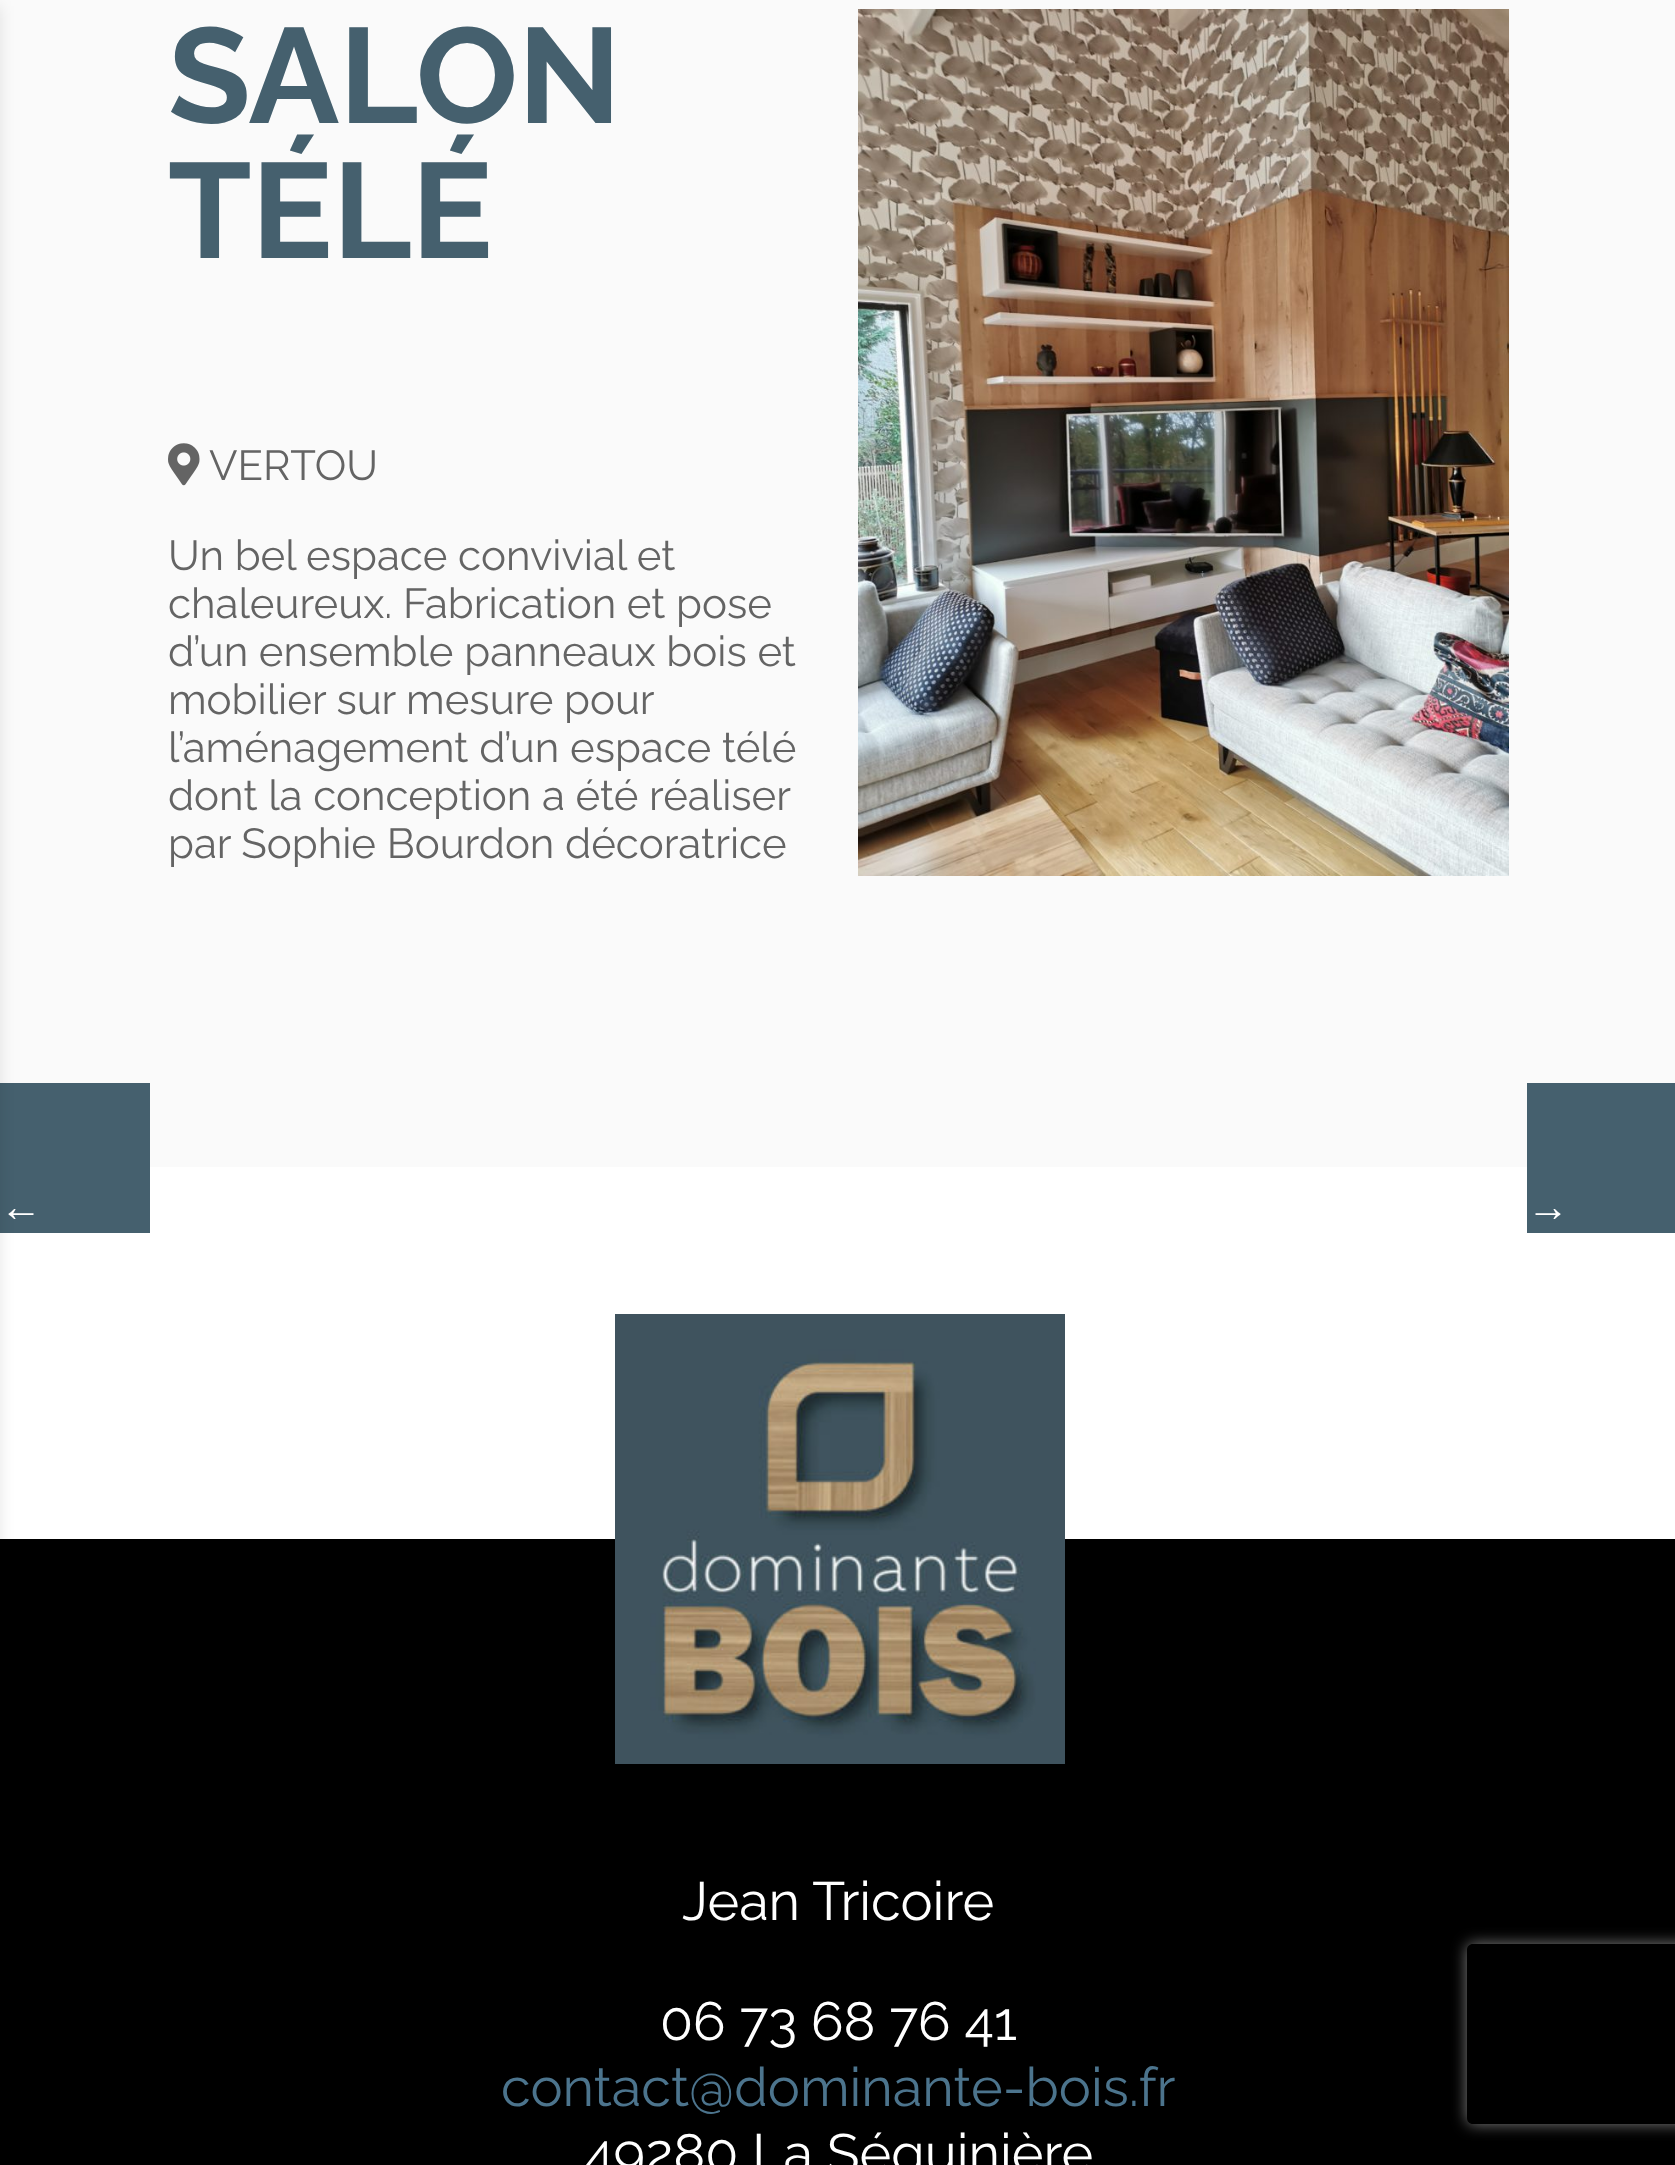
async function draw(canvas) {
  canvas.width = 1675
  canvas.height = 2165
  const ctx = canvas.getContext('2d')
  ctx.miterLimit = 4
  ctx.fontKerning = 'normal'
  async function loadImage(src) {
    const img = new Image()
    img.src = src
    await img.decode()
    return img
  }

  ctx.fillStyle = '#fff'
  ctx.fillRect(0, 0, 1675, 2165)
  ctx.fillStyle = '#fafafa'
  ctx.fillRect(0, 0, 1675, 1167)
  ctx.fillStyle = '#45606e'
  ctx.fillRect(0, 1083, 150, 150)
  ctx.fillStyle = '#000'
  ctx.fillRect(0, 1539, 1675, 626)
  ctx.fillStyle = '#0000001a'
  ctx.filter = 'blur(7.5px)'
  ctx.beginPath()
  ctx.rect(-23, 6, 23, 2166)
  ctx.fill()
  ctx.filter = 'none'
  ctx.drawImage(await loadImage('image0.png'), 858, 9, 651, 867)
  ctx.font = 'bold 135px Raleway'
  ctx.fillStyle = '#45606e'
  ctx.fillText('SALON', 168, 123)
  ctx.fillText('TÉLÉ', 168, 258)
  ctx.drawImage(await loadImage('image1.png'), 168, 443, 32, 43)
  ctx.font = '42px Raleway'
  ctx.fillStyle = '#646464'
  ctx.fillText('VERTOU', 209, 480)
  ctx.fillText('Un bel espace convivial et', 168, 570)
  ctx.fillText('chaleureux. Fabrication et pose', 168, 618)
  ctx.fillText('d’un ensemble panneaux bois et', 168, 666)
  ctx.fillText('mobilier sur mesure pour', 168, 714)
  ctx.fillText('l’aménagement d’un espace télé', 168, 762)
  ctx.fillText('dont la conception a été réaliser', 168, 810)
  ctx.fillText('par Sophie Bourdon décoratrice', 168, 858)
  ctx.font = 'bold 42px Liberation Sans'
  ctx.fillStyle = '#fff'
  ctx.fillText('←', 0, 1221)
  ctx.fillStyle = '#45606e'
  ctx.fillRect(1527, 1083, 148, 150)
  ctx.fillStyle = '#fff'
  ctx.fillText('→', 1527, 1221)
  ctx.drawImage(await loadImage('image2.png'), 615, 1314, 450, 450)
  ctx.font = '54px Raleway'
  ctx.fillText('Jean Tricoire', 682, 1920)
  ctx.fillText('06 73 68 76 41', 660, 2040)
  ctx.fillStyle = '#4c748d'
  ctx.fillText('contact@dominante-bois.fr', 501, 2106)
  ctx.fillStyle = '#fff'
  ctx.fillText('49280 La Séguinière', 584, 2172)
  ctx.save()
  ctx.beginPath()
  ctx.moveTo(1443, 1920)
  ctx.lineTo(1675, 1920)
  ctx.lineTo(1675, 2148)
  ctx.lineTo(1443, 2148)
  ctx.closePath()
  ctx.moveTo(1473, 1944)
  ctx.lineTo(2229, 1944)
  ctx.bezierCurveTo(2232.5, 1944, 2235, 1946.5, 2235, 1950)
  ctx.lineTo(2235, 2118)
  ctx.bezierCurveTo(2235, 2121.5, 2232.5, 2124, 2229, 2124)
  ctx.lineTo(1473, 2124)
  ctx.bezierCurveTo(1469.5, 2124, 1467, 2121.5, 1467, 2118)
  ctx.lineTo(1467, 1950)
  ctx.bezierCurveTo(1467, 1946.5, 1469.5, 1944, 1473, 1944)
  ctx.closePath()
  ctx.clip('evenodd')
  ctx.fillStyle = '#808080'
  ctx.filter = 'blur(7.5px)'
  ctx.beginPath()
  ctx.roundRect(1467, 1944, 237, 180, 6)
  ctx.fill()
  ctx.filter = 'none'
  ctx.restore()
}

draw(document.querySelector('canvas'))
